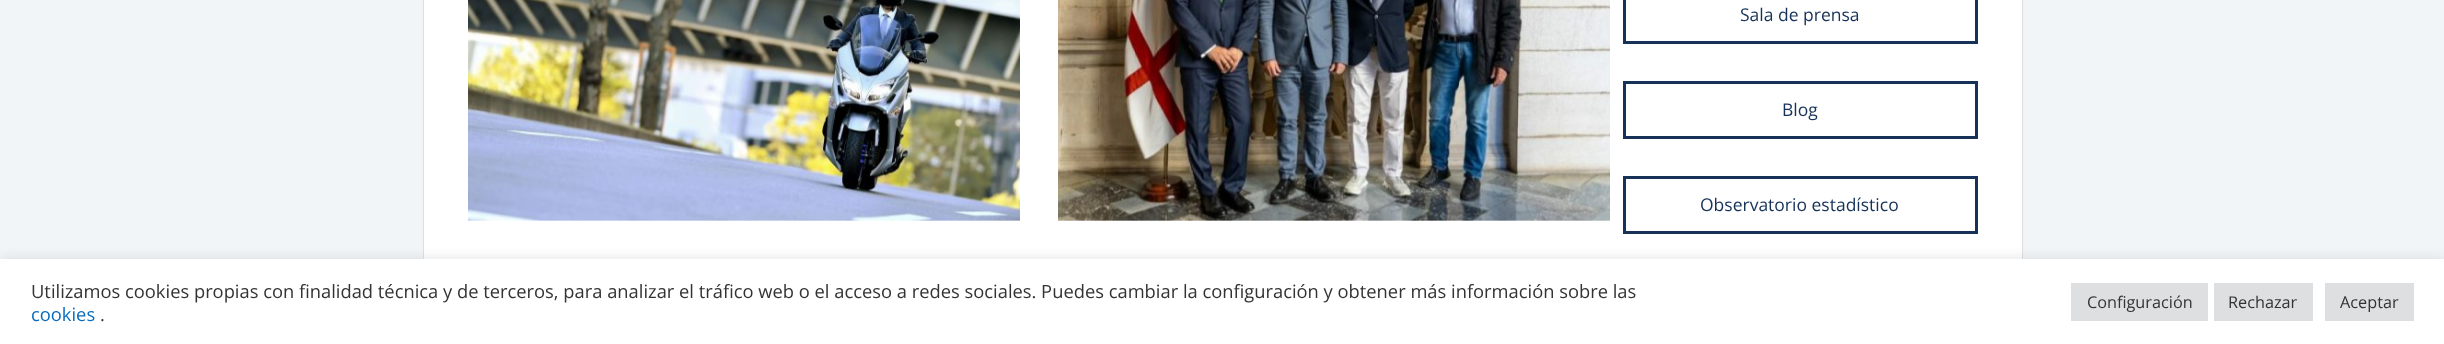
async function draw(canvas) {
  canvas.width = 2444
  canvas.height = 344
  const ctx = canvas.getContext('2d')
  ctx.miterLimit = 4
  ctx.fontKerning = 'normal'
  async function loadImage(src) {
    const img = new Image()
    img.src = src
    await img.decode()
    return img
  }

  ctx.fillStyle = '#f1f5f8'
  ctx.fillRect(0, 0, 2444, 344)
  ctx.fillStyle = '#fff'
  ctx.fillRect(424, 0, 1598, 259)
  ctx.strokeStyle = '#dedede'
  ctx.strokeRect(423.5, -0.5, 1599, 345)
  ctx.drawImage(await loadImage('image0.png'), 468, 0, 552, 221)
  ctx.drawImage(await loadImage('image1.png'), 1058, 0, 552, 221)
  ctx.strokeStyle = '#163259'
  ctx.lineWidth = 3
  ctx.strokeRect(1624.5, -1.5, 352, 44)
  ctx.font = '17.5px Open Sans'
  ctx.fillStyle = '#163259'
  ctx.fillText('Sala de prensa', 1740, 21)
  ctx.strokeRect(1624.5, 82.5, 352, 55)
  ctx.fillText('Blog', 1782, 116)
  ctx.strokeRect(1624.5, 177.5, 352, 55)
  ctx.fillText('Observatorio estadístico', 1700, 211)
  ctx.fillStyle = '#acabab4d'
  ctx.filter = 'blur(6px)'
  ctx.beginPath()
  ctx.rect(0, 258, 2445, 86)
  ctx.fill()
  ctx.filter = 'none'
  ctx.fillStyle = '#fff'
  ctx.fillRect(0, 259, 2444, 85)
  ctx.font = '18.33px Open Sans'
  ctx.fillStyle = '#333'
  ctx.fillText('Utilizamos cookies propias con finalidad técnica y de terceros, para analizar el tráfico web o el acceso a redes sociales. Puedes cambiar la configuración y obtener más información sobre las', 31, 298)
  ctx.fillStyle = '#086cbe'
  ctx.fillText('cookies', 31, 321)
  ctx.fillStyle = '#333'
  ctx.fillText('.', 100, 321)
  ctx.fillStyle = '#dedfe0'
  ctx.fillRect(2071, 283, 137, 38)
  ctx.font = '16.25px Open Sans'
  ctx.fillStyle = '#333'
  ctx.fillText('Configuración', 2087, 308)
  ctx.fillStyle = '#dedfe0'
  ctx.fillRect(2214, 283, 99, 38)
  ctx.fillStyle = '#333'
  ctx.fillText('Rechazar', 2228, 308)
  ctx.fillStyle = '#dedfe0'
  ctx.fillRect(2325, 283, 89, 38)
  ctx.fillStyle = '#333'
  ctx.fillText('Aceptar', 2340, 308)
}

draw(document.querySelector('canvas'))
